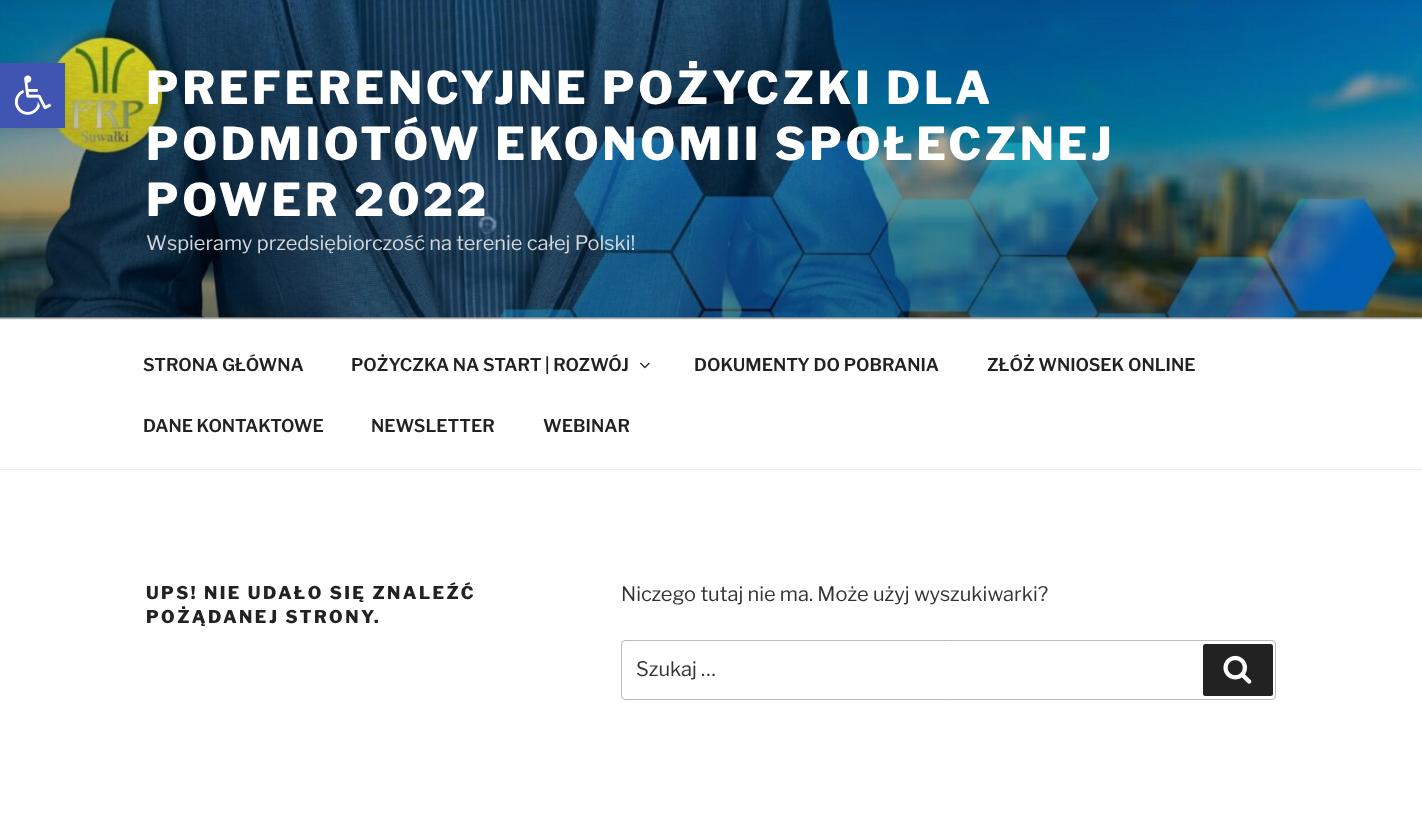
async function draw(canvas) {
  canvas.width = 1422
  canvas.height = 836
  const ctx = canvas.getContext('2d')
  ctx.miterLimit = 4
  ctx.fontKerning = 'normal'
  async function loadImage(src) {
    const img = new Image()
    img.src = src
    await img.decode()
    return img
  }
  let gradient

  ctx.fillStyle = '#fff'
  ctx.fillRect(0, 0, 1422, 836)
  ctx.fillStyle = '#fafafa'
  ctx.fillRect(0, 317, 1422, 2)
  ctx.drawImage(await loadImage('image1.png'), 0, 0, 1422, 318)
  gradient = ctx.createLinearGradient(711, 0, 711, 319)
  gradient.addColorStop(0, '#00000000')
  gradient.addColorStop(0.75, '#0000004d')
  gradient.addColorStop(1, '#0000004d')
  ctx.fillStyle = gradient
  ctx.fillRect(0, 17, 1422, 302)
  ctx.fillStyle = '#0000001a'
  ctx.filter = 'blur(6px)'
  ctx.beginPath()
  ctx.rect(0, 63, 65, 65)
  ctx.fill()
  ctx.filter = 'none'
  ctx.fillStyle = '#4054b2'
  ctx.fillRect(0, 63, 65, 65)
  ctx.drawImage(await loadImage('image0.png'), 14, 75, 38, 40)
  ctx.letterSpacing = '3.6px'
  ctx.font = '800 45px Libre Franklin'
  ctx.fillStyle = '#fff'
  ctx.fillText('PREFERENCYJNE POŻYCZKI DLA', 146, 104)
  ctx.fillText('PODMIOTÓW EKONOMII SPOŁECZNEJ', 146, 160)
  ctx.fillText('POWER 2022', 146, 216)
  ctx.letterSpacing = '0px'
  ctx.font = '20px Libre Franklin'
  ctx.fillStyle = '#d1d7dc'
  ctx.fillText('Wspieramy przedsiębiorczość na terenie całej Polski!', 146, 250)
  ctx.fillStyle = '#eee'
  ctx.fillRect(0, 319, 1422, 1)
  ctx.fillRect(0, 469, 1422, 1)
  ctx.font = '600 17.5px Libre Franklin'
  ctx.fillStyle = '#222'
  ctx.fillText('STRONA GŁÓWNA', 143, 371)
  ctx.fillText('POŻYCZKA NA START | ROZWÓJ', 351, 371)
  ctx.drawImage(await loadImage('image2.png'), 640, 362, 10, 7)
  ctx.fillText('DOKUMENTY DO POBRANIA', 694, 371)
  ctx.fillText('ZŁÓŻ WNIOSEK ONLINE', 987, 371)
  ctx.fillText('DANE KONTAKTOWE', 143, 432)
  ctx.fillText('NEWSLETTER', 371, 432)
  ctx.fillText('WEBINAR', 543, 432)
  ctx.letterSpacing = '2.45px'
  ctx.font = '800 17.5px Libre Franklin'
  ctx.fillText('UPS! NIE UDAŁO SIĘ ZNALEŹĆ', 146, 599)
  ctx.fillText('POŻĄDANEJ STRONY.', 146, 623)
  ctx.letterSpacing = '0px'
  ctx.font = '20px Libre Franklin'
  ctx.fillStyle = '#333'
  ctx.fillText('Niczego tutaj nie ma. Może użyj wyszukiwarki?', 621, 601)
  ctx.beginPath()
  ctx.roundRect(621.5, 640.5, 654, 59, 3.5)
  ctx.strokeStyle = '#bbb'
  ctx.stroke()
  ctx.fillText('Szukaj …', 636, 676)
  ctx.fillStyle = '#222'
  ctx.beginPath()
  ctx.roundRect(1203, 644, 70, 52, 2.5)
  ctx.fill()
  ctx.drawImage(await loadImage('image3.png'), 1223, 655, 29, 29)
}

draw(document.querySelector('canvas'))
